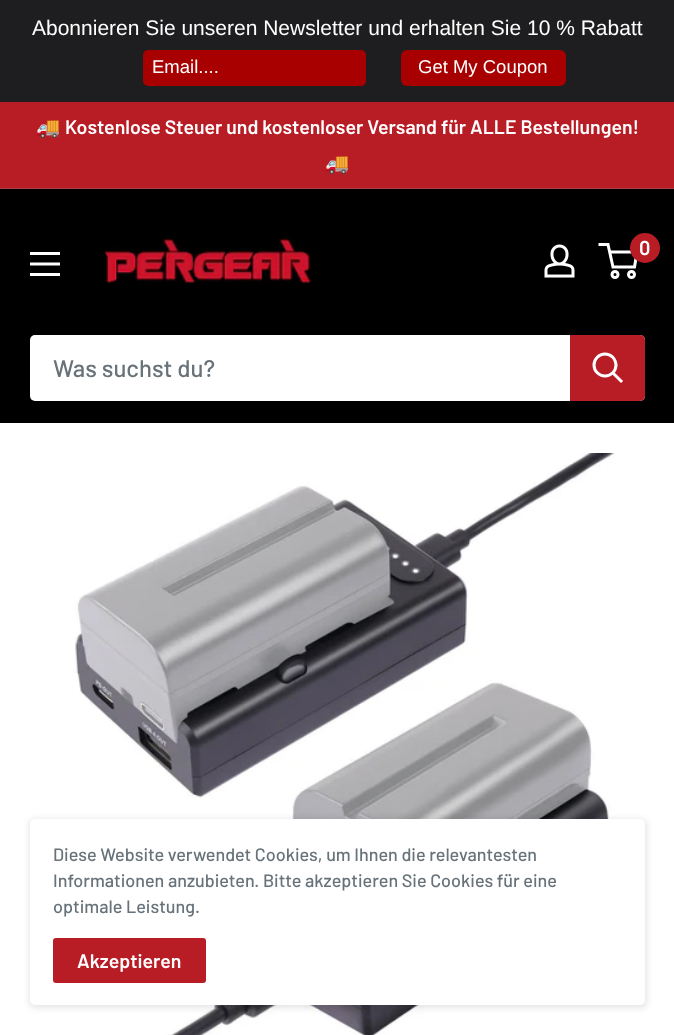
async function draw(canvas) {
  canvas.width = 674
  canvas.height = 1035
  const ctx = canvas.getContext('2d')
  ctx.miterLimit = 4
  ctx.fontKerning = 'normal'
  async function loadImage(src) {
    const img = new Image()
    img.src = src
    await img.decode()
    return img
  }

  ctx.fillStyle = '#b81c25'
  ctx.fillRect(0, 0, 674, 1035)
  ctx.fillStyle = '#1e1e20'
  ctx.fillRect(0, 0, 674, 102)
  ctx.font = '21px Liberation Sans'
  ctx.fillStyle = '#fff'
  ctx.fillText('Abonnieren Sie unseren Newsletter und erhalten Sie 10 % Rabatt', 32, 35)
  ctx.fillStyle = '#a80000'
  ctx.beginPath()
  ctx.roundRect(143, 50, 223, 36, 5)
  ctx.fill()
  ctx.font = '18.5px Liberation Sans'
  ctx.fillStyle = '#fff'
  ctx.fillText('Email....', 152, 73)
  ctx.fillStyle = '#a80000'
  ctx.beginPath()
  ctx.roundRect(401, 50, 165, 36, 6)
  ctx.fill()
  ctx.fillStyle = '#fff'
  ctx.fillText('Get My Coupon', 418, 73)
  ctx.fillStyle = '#ab3e44'
  ctx.fillRect(0, 188, 674, 1)
  ctx.font = 'bold 19.5px Noto Color Emoji'
  ctx.fillStyle = '#fff'
  ctx.fillText('🚚', 36, 134)
  ctx.font = '600 19.5px Barlow'
  ctx.fillText('Kostenlose Steuer und kostenloser Versand für ALLE Bestellungen!', 65, 134)
  ctx.font = 'bold 19.5px Noto Color Emoji'
  ctx.fillText('🚚', 325, 170)
  ctx.fillStyle = '#000'
  ctx.fillRect(0, 189, 674, 234)
  ctx.drawImage(await loadImage('image0.png'), 103, 237, 208, 48)
  ctx.drawImage(await loadImage('image1.png'), 544, 244, 31, 34)
  ctx.beginPath()
  ctx.arc(615, 274.5, 3, 0, 2 * Math.PI)
  ctx.strokeStyle = '#fff'
  ctx.lineWidth = 3
  ctx.stroke()
  ctx.beginPath()
  ctx.arc(631.5, 274.5, 3, 0, 2 * Math.PI)
  ctx.stroke()
  ctx.beginPath()
  ctx.moveTo(609.5, 252)
  ctx.lineTo(637, 252)
  ctx.lineTo(634.5, 267)
  ctx.lineTo(613, 267)
  ctx.lineTo(608, 244.5)
  ctx.lineTo(598.5, 244.5)
  ctx.stroke()
  ctx.fillStyle = '#b81c25'
  ctx.beginPath()
  ctx.arc(645, 248, 15, 0, 2 * Math.PI)
  ctx.fill()
  ctx.font = '600 20px Barlow'
  ctx.fillStyle = '#fff'
  ctx.fillText('0', 639, 255)
  ctx.drawImage(await loadImage('image2.png'), 30, 252, 30, 24)
  ctx.beginPath()
  ctx.roundRect(30, 335, 615, 66, 5)
  ctx.fill()
  ctx.font = '500 24px Barlow'
  ctx.fillStyle = '#677279'
  ctx.fillText('Was suchst du?', 53, 377)
  ctx.fillStyle = '#b81c25'
  ctx.beginPath()
  ctx.roundRect(570, 335, 75, 66, [0, 5, 5, 0])
  ctx.fill()
  ctx.beginPath()
  ctx.moveTo(621, 381)
  ctx.lineTo(613.5, 373.5)
  ctx.lineCap = 'square'
  ctx.stroke()
  ctx.beginPath()
  ctx.arc(605, 365, 11, 0, 2 * Math.PI)
  ctx.stroke()
  ctx.fillStyle = '#fff'
  ctx.fillRect(0, 423, 674, 612)
  ctx.drawImage(await loadImage('image3.png'), 74, 453, 541, 582)
  ctx.fillStyle = '#0000001a'
  ctx.filter = 'blur(3px)'
  ctx.beginPath()
  ctx.roundRect(29, 819, 618, 189, 6)
  ctx.fill()
  ctx.filter = 'none'
  ctx.fillStyle = '#fff'
  ctx.beginPath()
  ctx.roundRect(30, 819, 615, 186, 5)
  ctx.fill()
  ctx.font = '500 18px Barlow'
  ctx.fillStyle = '#677279'
  ctx.fillText('Diese Website verwendet Cookies, um Ihnen die relevantesten', 53, 861)
  ctx.fillText('Informationen anzubieten. Bitte akzeptieren Sie Cookies für eine', 53, 887)
  ctx.fillText('optimale Leistung.', 53, 913)
  ctx.fillStyle = '#b81c25'
  ctx.beginPath()
  ctx.roundRect(53, 938, 153, 45, 3)
  ctx.fill()
  ctx.font = '600 19.5px Barlow'
  ctx.fillStyle = '#fff'
  ctx.fillText('Akzeptieren', 77, 968)
}

draw(document.querySelector('canvas'))
